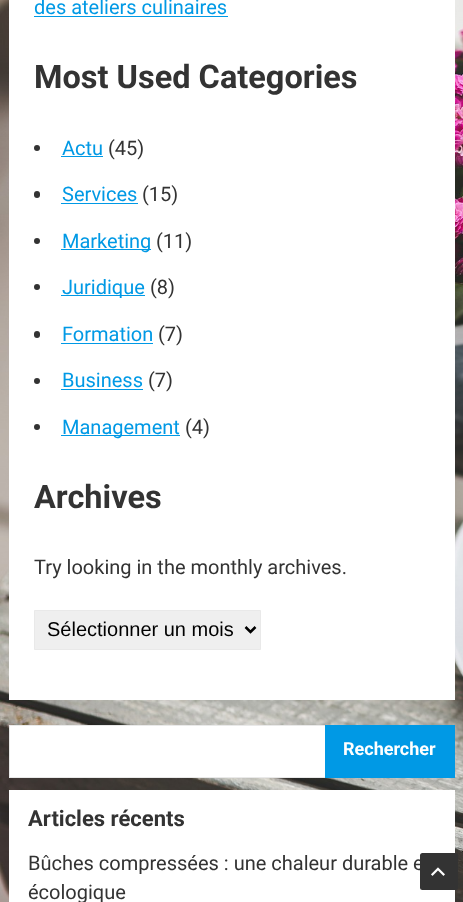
async function draw(canvas) {
  canvas.width = 463
  canvas.height = 902
  const ctx = canvas.getContext('2d')
  ctx.miterLimit = 4
  ctx.fontKerning = 'normal'
  async function loadImage(src) {
    const img = new Image()
    img.src = src
    await img.decode()
    return img
  }

  ctx.fillStyle = '#fff'
  ctx.fillRect(0, 0, 463, 902)
  ctx.drawImage(await loadImage('image0.png'), 0, 0, 463, 902)
  ctx.fillRect(9, 0, 446, 700)
  ctx.font = '20px Roboto'
  ctx.fillStyle = '#0099e5'
  ctx.fillText('des ateliers culinaires', 34, 14)
  ctx.fillRect(34, 16, 194, 1)
  ctx.font = 'bold 32.5px Roboto'
  ctx.fillStyle = '#333'
  ctx.fillText('Most Used Categories', 34, 88)
  ctx.beginPath()
  ctx.arc(37, 148, 3, 0, 2 * Math.PI)
  ctx.fill()
  ctx.font = '20px Roboto'
  ctx.fillStyle = '#0099e5'
  ctx.fillText('Actu', 62, 155)
  ctx.fillRect(61, 156, 42, 1)
  ctx.fillStyle = '#333'
  ctx.fillText('(45)', 108, 155)
  ctx.beginPath()
  ctx.roundRect(34, 191, 6, 7, 3)
  ctx.fill()
  ctx.fillStyle = '#0099e5'
  ctx.fillText('Services', 62, 201)
  ctx.fillRect(61, 203, 77, 1)
  ctx.fillStyle = '#333'
  ctx.fillText('(15)', 142, 201)
  ctx.beginPath()
  ctx.arc(37, 241, 3, 0, 2 * Math.PI)
  ctx.fill()
  ctx.fillStyle = '#0099e5'
  ctx.fillRect(61, 249, 90, 1)
  ctx.fillText('Marketing', 62, 248)
  ctx.fillStyle = '#333'
  ctx.fillText('(11)', 156, 248)
  ctx.beginPath()
  ctx.arc(37, 287, 3, 0, 2 * Math.PI)
  ctx.fill()
  ctx.fillStyle = '#0099e5'
  ctx.fillRect(61, 295, 84, 1)
  ctx.fillText('Juridique', 62, 294)
  ctx.fillStyle = '#333'
  ctx.fillText('(8)', 150, 294)
  ctx.beginPath()
  ctx.roundRect(34, 331, 6, 7, 3)
  ctx.fill()
  ctx.fillStyle = '#0099e5'
  ctx.fillText('Formation', 62, 341)
  ctx.fillRect(61, 343, 92, 1)
  ctx.fillStyle = '#333'
  ctx.fillText('(7)', 158, 341)
  ctx.beginPath()
  ctx.arc(37, 381, 3, 0, 2 * Math.PI)
  ctx.fill()
  ctx.fillStyle = '#0099e5'
  ctx.fillText('Business', 62, 387)
  ctx.fillRect(61, 389, 82, 1)
  ctx.fillStyle = '#333'
  ctx.fillText('(7)', 148, 387)
  ctx.beginPath()
  ctx.arc(37, 427, 3, 0, 2 * Math.PI)
  ctx.fill()
  ctx.fillStyle = '#0099e5'
  ctx.fillRect(61, 435, 119, 1)
  ctx.fillText('Management', 62, 434)
  ctx.fillStyle = '#333'
  ctx.fillText('(4)', 185, 434)
  ctx.font = 'bold 32.5px Roboto'
  ctx.fillText('Archives', 34, 508)
  ctx.font = '20px Roboto'
  ctx.fillText('Try looking in the monthly archives.', 34, 574)
  ctx.fillStyle = '#efefef'
  ctx.beginPath()
  ctx.rect(34.5, 610.5, 226, 39)
  ctx.fill()
  ctx.strokeStyle = '#e9e9e9'
  ctx.stroke()
  ctx.beginPath()
  ctx.moveTo(245.5, 627)
  ctx.lineTo(250.5, 632)
  ctx.lineTo(255.5, 627)
  ctx.strokeStyle = '#000'
  ctx.lineWidth = 2.5
  ctx.stroke()
  ctx.font = '20px Liberation Sans'
  ctx.fillStyle = '#000'
  ctx.fillText('Sélectionner un mois', 47, 636)
  ctx.fillStyle = '#fff'
  ctx.fillRect(10, 726, 315, 51)
  ctx.strokeStyle = '#e9e9e9'
  ctx.lineWidth = 1
  ctx.strokeRect(9.5, 725.5, 445, 52)
  ctx.fillStyle = '#0099e5'
  ctx.fillRect(325, 725, 130, 53)
  ctx.font = 'bold 18px Roboto'
  ctx.fillStyle = '#fff'
  ctx.fillText('Rechercher', 343, 755)
  ctx.fillRect(9, 790, 446, 112)
  ctx.font = 'bold 22px Roboto'
  ctx.fillStyle = '#333'
  ctx.fillText('Articles récents', 28, 826)
  ctx.font = '20px Roboto'
  ctx.fillText('Bûches compressées : une chaleur durable e', 28, 870)
  ctx.fillText('écologique', 28, 899)
  ctx.beginPath()
  ctx.roundRect(420, 853, 38, 37, 2.5)
  ctx.fill()
  ctx.drawImage(await loadImage('image1.png'), 431, 867, 14, 9)
}

draw(document.querySelector('canvas'))
